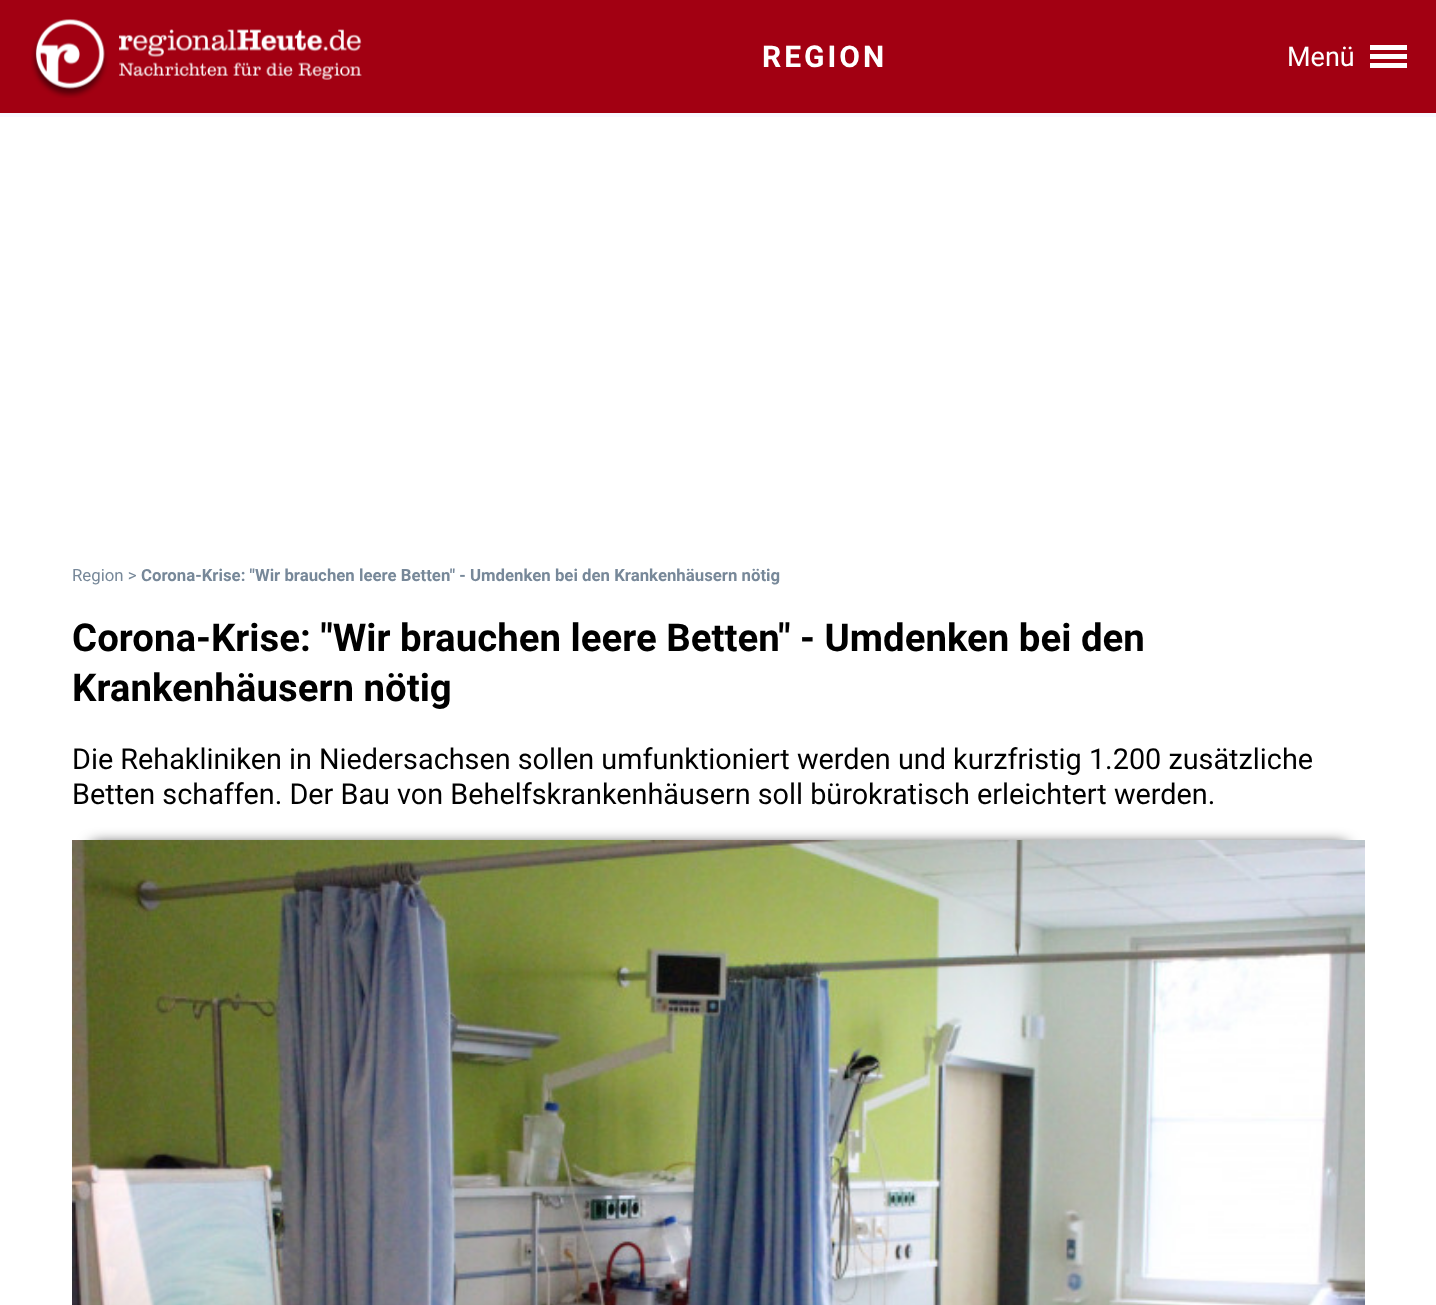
async function draw(canvas) {
  canvas.width = 1436
  canvas.height = 1305
  const ctx = canvas.getContext('2d')
  ctx.miterLimit = 4
  ctx.fontKerning = 'normal'
  async function loadImage(src) {
    const img = new Image()
    img.src = src
    await img.decode()
    return img
  }

  ctx.fillStyle = '#f8f8ff'
  ctx.fillRect(0, 0, 1436, 1305)
  ctx.fillStyle = '#a20012'
  ctx.fillRect(0, 0, 1436, 113)
  ctx.drawImage(await loadImage('image0.png'), 31, 19, 331, 79)
  ctx.letterSpacing = '3px'
  ctx.font = 'bold 30px Roboto'
  ctx.fillStyle = '#fff'
  ctx.fillText('REGION', 762, 67)
  ctx.letterSpacing = '0px'
  ctx.font = '27px Roboto'
  ctx.fillText('Menü', 1287, 66)
  ctx.fillRect(1370, 45, 37, 5)
  ctx.fillRect(1370, 54, 37, 5)
  ctx.fillRect(1370, 63, 37, 5)
  ctx.fillRect(0, 117, 1436, 1188)
  ctx.font = '16.8px Roboto'
  ctx.fillStyle = '#789'
  ctx.fillText('Region >', 72, 581)
  ctx.font = 'bold 16.8px Roboto'
  ctx.fillText('Corona-Krise: "Wir brauchen leere Betten" - Umdenken bei den Krankenhäusern nötig', 141, 581)
  ctx.font = 'bold 38.4px Roboto'
  ctx.fillStyle = '#000'
  ctx.fillText('Corona-Krise: "Wir brauchen leere Betten" - Umdenken bei den', 72, 651)
  ctx.fillText('Krankenhäusern nötig', 72, 701)
  ctx.font = '28.8px Roboto'
  ctx.fillText('Die Rehakliniken in Niedersachsen sollen umfunktioniert werden und kurzfristig 1.200 zusätzliche', 72, 769)
  ctx.fillText('Betten schaffen. Der Bau von Behelfskrankenhäusern soll bürokratisch erleichtert werden.', 72, 804)
  ctx.filter = 'blur(7.5px)'
  ctx.beginPath()
  ctx.rect(92, 845, 1254, 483)
  ctx.fill()
  ctx.filter = 'none'
  ctx.drawImage(await loadImage('image1.png'), 72, 840, 1293, 465)
}

draw(document.querySelector('canvas'))
